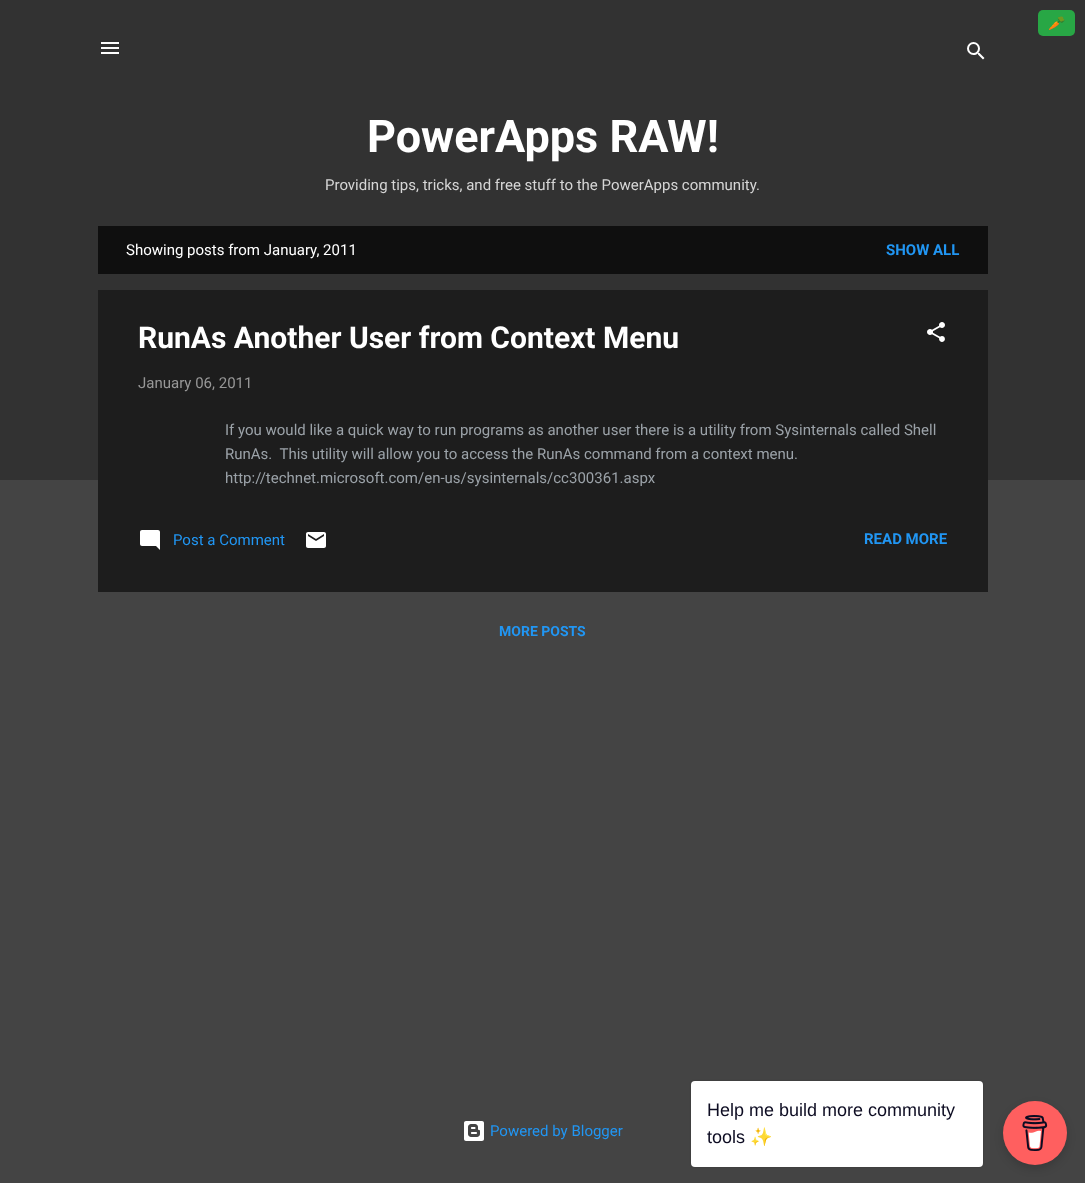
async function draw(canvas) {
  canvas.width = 1085
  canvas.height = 1183
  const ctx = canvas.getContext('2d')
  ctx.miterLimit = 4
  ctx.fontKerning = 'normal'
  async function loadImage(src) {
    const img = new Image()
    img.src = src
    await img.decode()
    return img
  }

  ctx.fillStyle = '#444'
  ctx.fillRect(0, 0, 1085, 1183)
  ctx.fillStyle = '#323232'
  ctx.fillRect(0, 0, 1085, 480)
  ctx.fillStyle = '#28a745'
  ctx.beginPath()
  ctx.roundRect(1038, 10, 37, 26, 5)
  ctx.fill()
  ctx.font = '14px Noto Color Emoji'
  ctx.fillStyle = '#fff'
  ctx.fillText('🥕', 1048, 28)
  ctx.drawImage(await loadImage('image0.png'), 101, 42, 18, 12)
  ctx.drawImage(await loadImage('image1.png'), 967, 42, 18, 18)
  ctx.font = 'bold 45px Roboto'
  ctx.fillText('PowerApps RAW!', 367, 152)
  ctx.font = '15px Roboto'
  ctx.fillStyle = '#d6d6d6'
  ctx.fillText('Providing tips, tricks, and free stuff to the PowerApps community.', 325, 190)
  ctx.fillStyle = '#0f0f0f'
  ctx.fillRect(98, 226, 890, 48)
  ctx.fillStyle = '#fff'
  ctx.fillText('Showing posts from January, 2011', 126, 255)
  ctx.font = 'bold 15px Roboto'
  ctx.fillStyle = '#2196f3'
  ctx.fillText('SHOW ALL', 886, 255)
  ctx.fillStyle = '#1d1d1d'
  ctx.fillRect(98, 290, 890, 302)
  ctx.font = 'bold 30px Roboto'
  ctx.fillStyle = '#fff'
  ctx.fillText('RunAs Another User from Context Menu', 138, 348)
  ctx.drawImage(await loadImage('image2.png'), 927, 322, 18, 20)
  ctx.font = '15px Roboto'
  ctx.fillStyle = '#979797'
  ctx.fillText('January 06, 2011', 138, 388)
  ctx.fillStyle = '#9ba2a8'
  ctx.fillText('If you would like a quick way to run programs as another user there is a utility from Sysinternals called Shell', 225, 435)
  ctx.fillText('RunAs.  This utility will allow you to access the RunAs command from a context menu.', 225, 459)
  ctx.fillText('http://technet.microsoft.com/en-us/sysinternals/cc300361.aspx', 225, 483)
  ctx.drawImage(await loadImage('image3.png'), 140, 530, 20, 20)
  ctx.fillStyle = '#2196f3'
  ctx.fillText('Post a Comment', 173, 545)
  ctx.drawImage(await loadImage('image4.png'), 306, 532, 20, 16)
  ctx.font = 'bold 15px Roboto'
  ctx.fillText('READ MORE', 864, 544)
  ctx.font = 'bold 14px Roboto'
  ctx.fillText('MORE POSTS', 499, 636)
  ctx.drawImage(await loadImage('image5.png'), 464, 1121, 20, 20)
  ctx.font = '15px Roboto'
  ctx.fillText('Powered by Blogger', 490, 1136)
  ctx.fillStyle = '#00000026'
  ctx.filter = 'blur(4px)'
  ctx.beginPath()
  ctx.roundRect(1003, 1105, 64, 64, 32)
  ctx.fill()
  ctx.filter = 'none'
  ctx.fillStyle = '#ff5f5f'
  ctx.beginPath()
  ctx.arc(1035, 1133, 32, 0, 2 * Math.PI)
  ctx.fill()
  ctx.drawImage(await loadImage('image6.png'), 1022, 1115, 26, 36)
  ctx.fillStyle = '#00000026'
  ctx.filter = 'blur(1px)'
  ctx.beginPath()
  ctx.roundRect(691, 1081, 292, 86, 4)
  ctx.fill()
  ctx.filter = 'none'
  ctx.fillStyle = '#fff'
  ctx.beginPath()
  ctx.roundRect(691, 1081, 292, 86, 4)
  ctx.fill()
  ctx.font = '18px Liberation Sans'
  ctx.fillStyle = '#0d0c22'
  ctx.fillText('Help me build more community', 707, 1116)
  ctx.fillText('tools', 707, 1143)
  ctx.font = '18px Noto Color Emoji'
  ctx.fillText('✨', 750, 1143)
}

draw(document.querySelector('canvas'))
